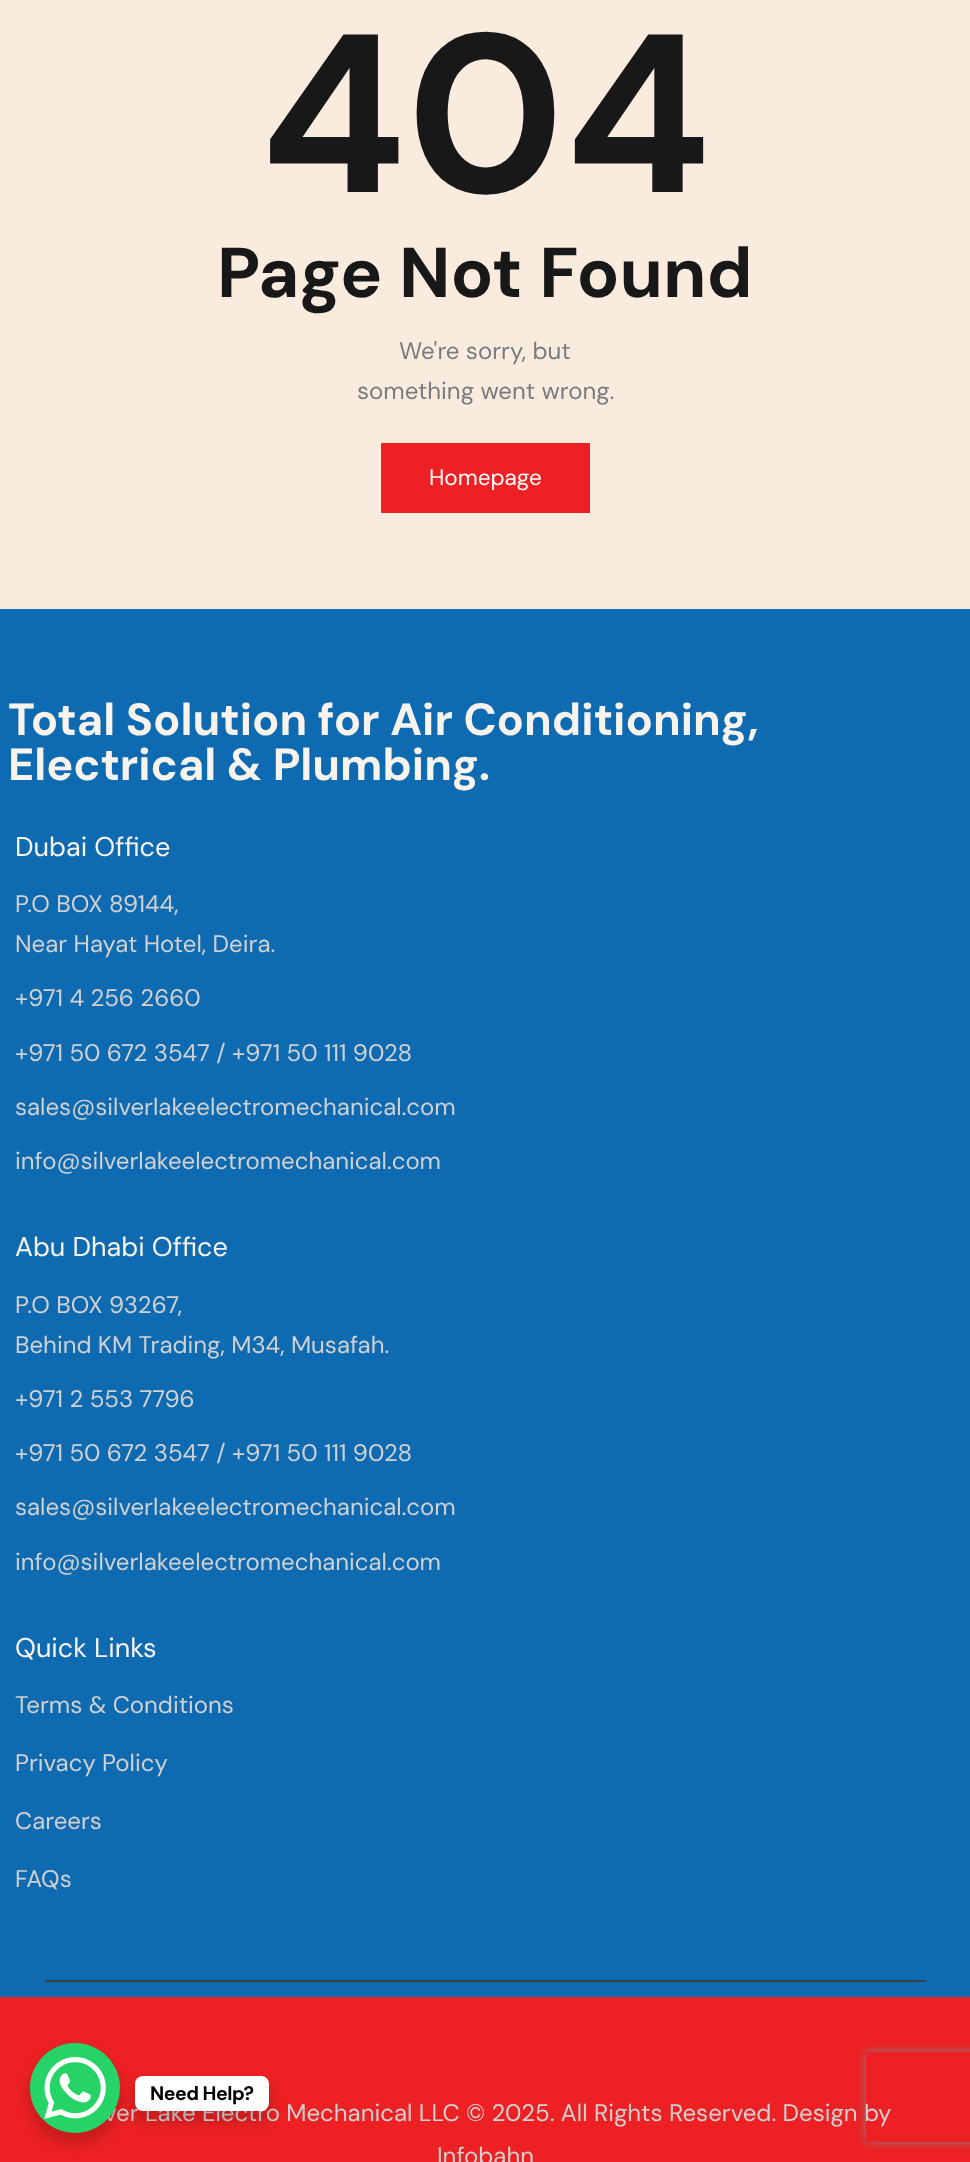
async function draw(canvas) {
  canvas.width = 970
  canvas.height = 2162
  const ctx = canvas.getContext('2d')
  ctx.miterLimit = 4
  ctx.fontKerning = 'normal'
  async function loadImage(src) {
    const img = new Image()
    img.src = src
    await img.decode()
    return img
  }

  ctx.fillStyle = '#f9ebde'
  ctx.fillRect(0, 0, 970, 2162)
  ctx.font = 'bold 225px DM Sans'
  ctx.fillStyle = '#181818'
  ctx.fillText('404', 260, 192)
  ctx.font = 'bold 70.5px DM Sans'
  ctx.fillText('Page Not Found', 217, 297)
  ctx.font = '24px DM Sans'
  ctx.fillStyle = '#797c7f'
  ctx.fillText('We\'re sorry, but', 399, 359)
  ctx.fillText('something went wrong.', 357, 399)
  ctx.fillStyle = '#ed2123'
  ctx.fillRect(381, 443, 209, 70)
  ctx.font = '22.5px DM Sans'
  ctx.fillStyle = '#fff'
  ctx.fillText('Homepage', 429, 485)
  ctx.fillStyle = '#0e6bb2'
  ctx.fillRect(0, 609, 970, 1388)
  ctx.font = 'bold 45px DM Sans'
  ctx.fillStyle = '#f9f3ee'
  ctx.fillText('Total Solution for Air Conditioning,', 8, 735)
  ctx.fillText('Electrical & Plumbing.', 8, 780)
  ctx.font = '27px DM Sans'
  ctx.fillText('Dubai Office', 15, 856)
  ctx.font = '24px DM Sans'
  ctx.fillStyle = '#d1d1d1'
  ctx.fillText('P.O BOX 89144,', 15, 912)
  ctx.fillText('Near Hayat Hotel, Deira.', 15, 952)
  ctx.fillText('+971 4 256 2660', 15, 1006)
  ctx.fillText('+971 50 672 3547 / +971 50 111 9028', 15, 1061)
  ctx.fillText('sales@silverlakeelectromechanical.com', 15, 1115)
  ctx.fillText('info@silverlakeelectromechanical.com', 15, 1169)
  ctx.font = '27px DM Sans'
  ctx.fillStyle = '#f9f3ee'
  ctx.fillText('Abu Dhabi Office', 15, 1256)
  ctx.font = '24px DM Sans'
  ctx.fillStyle = '#d1d1d1'
  ctx.fillText('P.O BOX 93267,', 15, 1313)
  ctx.fillText('Behind KM Trading, M34, Musafah.', 15, 1353)
  ctx.fillText('+971 2 553 7796', 15, 1407)
  ctx.fillText('+971 50 672 3547 / +971 50 111 9028', 15, 1461)
  ctx.fillText('sales@silverlakeelectromechanical.com', 15, 1515)
  ctx.fillText('info@silverlakeelectromechanical.com', 15, 1570)
  ctx.font = '27px DM Sans'
  ctx.fillStyle = '#f9f3ee'
  ctx.fillText('Quick Links', 15, 1657)
  ctx.font = '24px DM Sans'
  ctx.fillStyle = '#d1d1d1'
  ctx.fillText('Terms & Conditions', 15, 1713)
  ctx.fillText('Privacy Policy', 15, 1771)
  ctx.fillText('Careers', 15, 1829)
  ctx.fillText('FAQs', 15, 1887)
  ctx.fillStyle = '#3f3f3f'
  ctx.fillRect(45, 1980, 881, 2)
  ctx.fillStyle = '#ed2123'
  ctx.fillRect(0, 1997, 970, 165)
  ctx.fillStyle = '#d1d1d1'
  ctx.fillText('ver Lake Electro Mechanical LLC © 2025. All Rights Reserved. Design by', 104, 2121)
  ctx.fillText('Infobahn', 437, 2164)
  ctx.save()
  ctx.beginPath()
  ctx.moveTo(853, 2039)
  ctx.lineTo(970, 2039)
  ctx.lineTo(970, 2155)
  ctx.lineTo(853, 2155)
  ctx.closePath()
  ctx.moveTo(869, 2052)
  ctx.lineTo(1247, 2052)
  ctx.bezierCurveTo(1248.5, 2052, 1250, 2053.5, 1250, 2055)
  ctx.lineTo(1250, 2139)
  ctx.bezierCurveTo(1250, 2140.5, 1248.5, 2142, 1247, 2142)
  ctx.lineTo(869, 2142)
  ctx.bezierCurveTo(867.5, 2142, 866, 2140.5, 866, 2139)
  ctx.lineTo(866, 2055)
  ctx.bezierCurveTo(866, 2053.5, 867.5, 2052, 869, 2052)
  ctx.closePath()
  ctx.clip('evenodd')
  ctx.fillStyle = '#808080'
  ctx.filter = 'blur(4px)'
  ctx.beginPath()
  ctx.roundRect(866, 2052, 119, 90, 3)
  ctx.fill()
  ctx.filter = 'none'
  ctx.restore()
  ctx.fillStyle = '#00000026'
  ctx.filter = 'blur(6px)'
  ctx.beginPath()
  ctx.roundRect(27, 2049, 96, 96, 48)
  ctx.fill()
  ctx.filter = 'none'
  ctx.fillStyle = '#25d366'
  ctx.beginPath()
  ctx.arc(75, 2088, 45, 0, 2 * Math.PI)
  ctx.fill()
  ctx.drawImage(await loadImage('image0.png'), 44, 2057, 62, 62)
  ctx.fillStyle = '#00000026'
  ctx.filter = 'blur(6px)'
  ctx.beginPath()
  ctx.roundRect(132, 2082, 140, 41, 11)
  ctx.fill()
  ctx.filter = 'none'
  ctx.fillStyle = '#fff'
  ctx.beginPath()
  ctx.roundRect(135, 2076, 134, 35, 8)
  ctx.fill()
  ctx.letterSpacing = '-0.5px'
  ctx.font = 'bold 19.5px DM Sans'
  ctx.fillStyle = '#000'
  ctx.fillText('Need Help?', 150, 2100)
}

draw(document.querySelector('canvas'))
